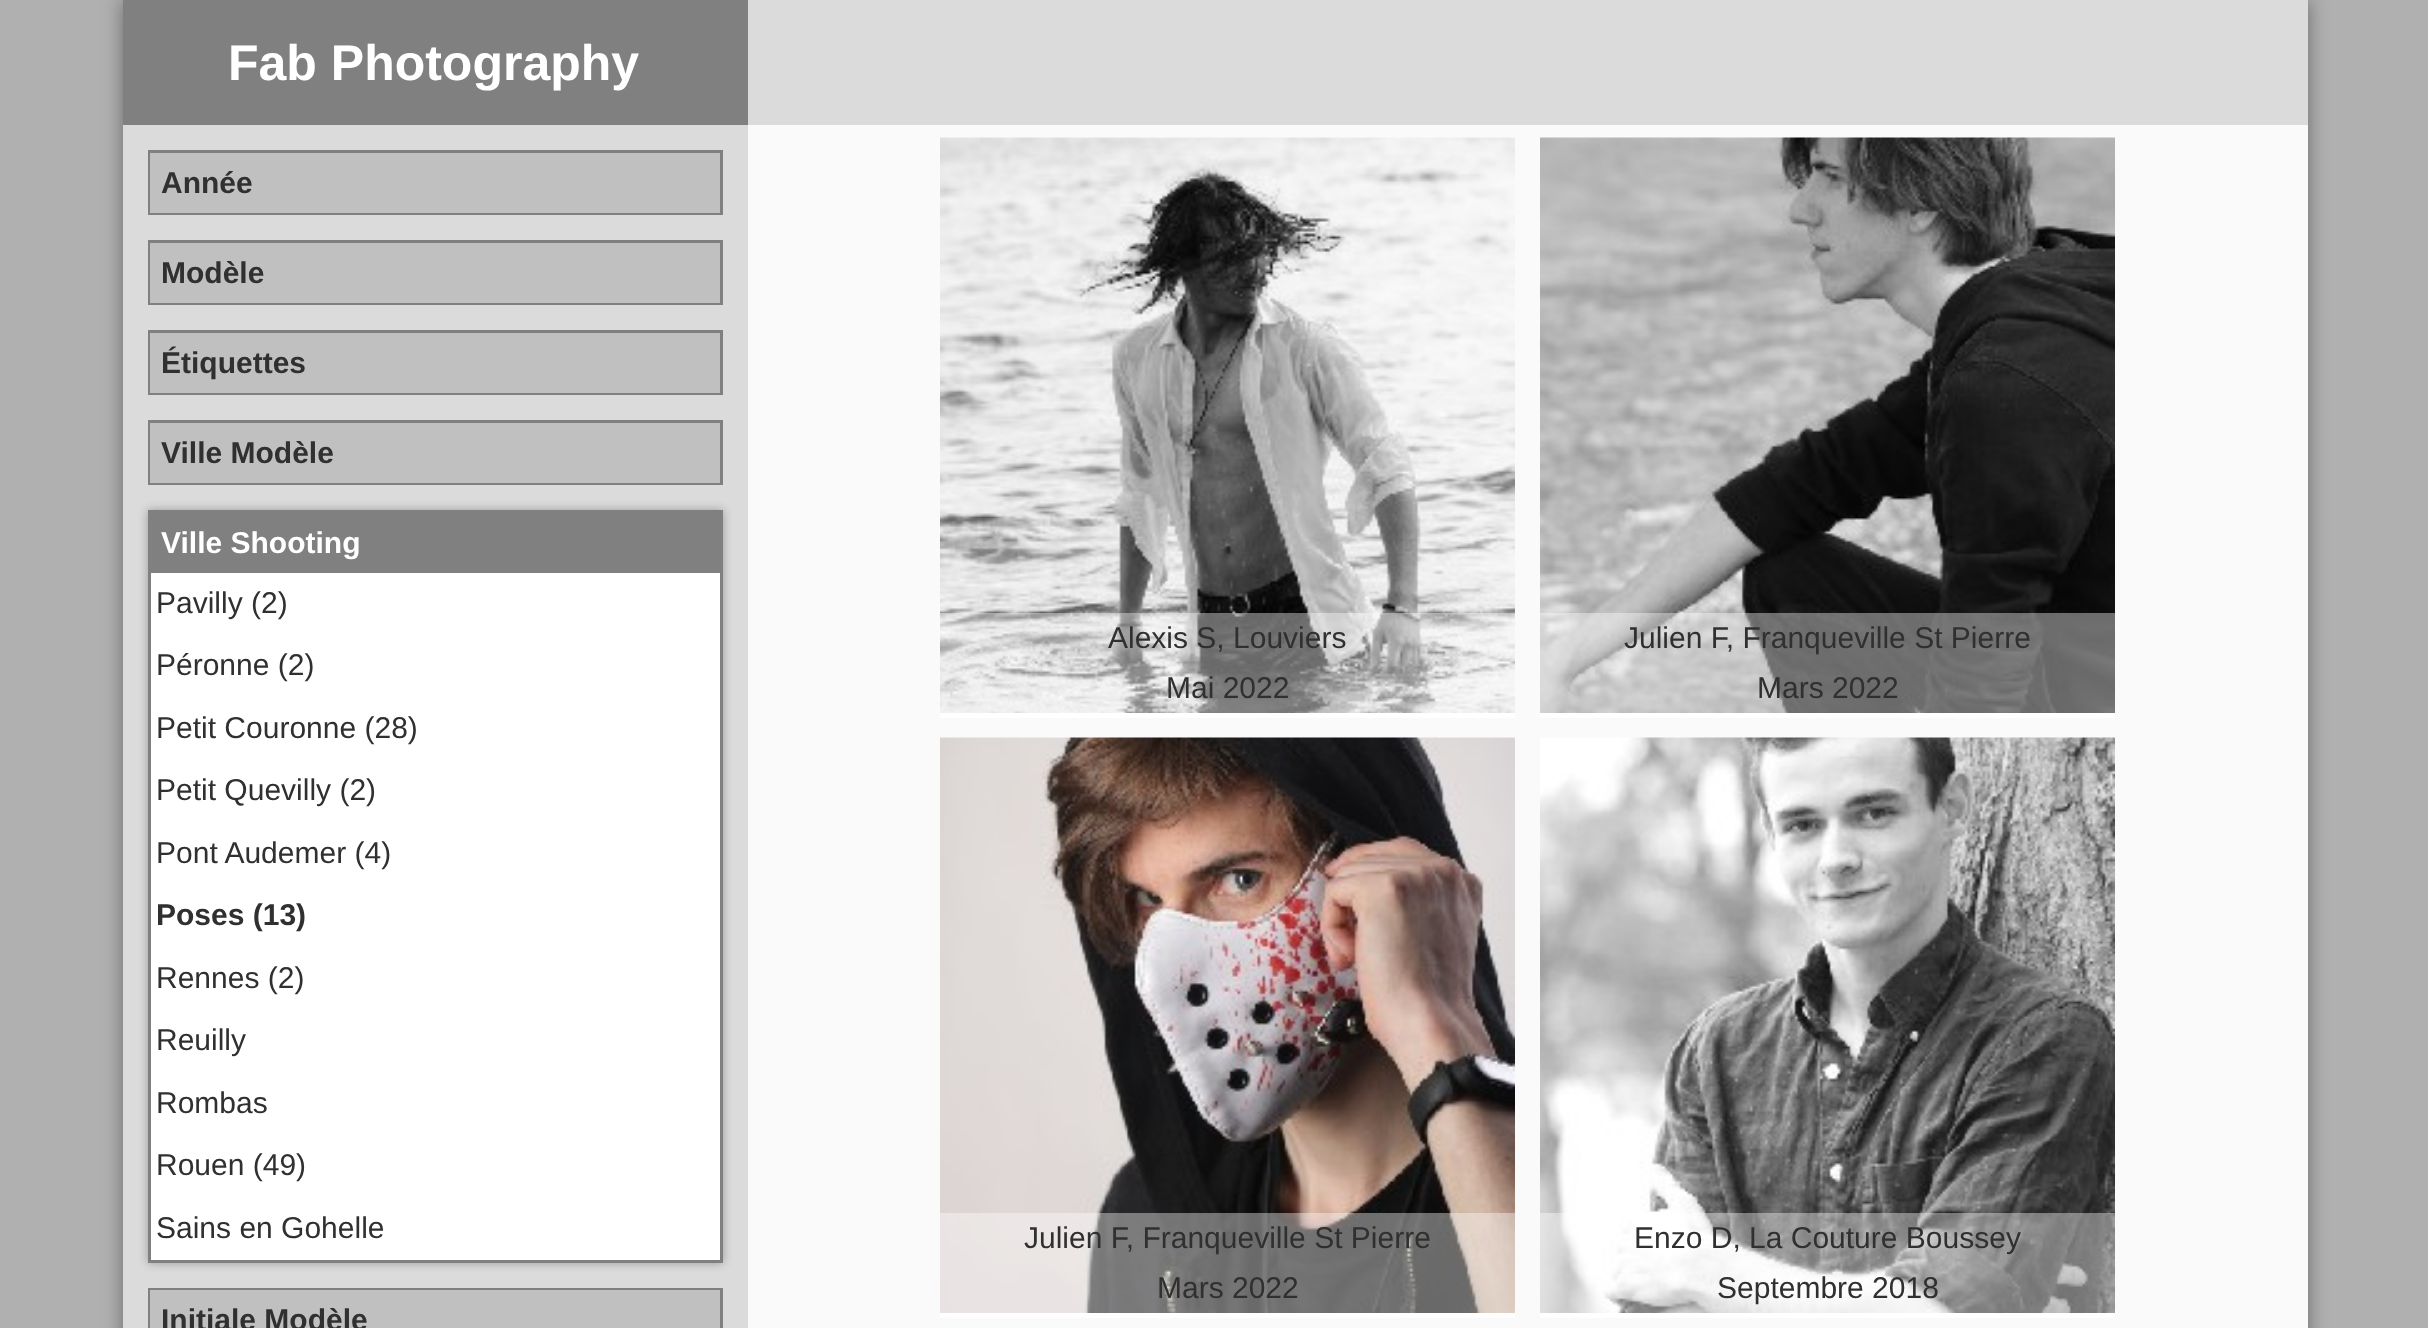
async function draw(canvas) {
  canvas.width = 2428
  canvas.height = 1328
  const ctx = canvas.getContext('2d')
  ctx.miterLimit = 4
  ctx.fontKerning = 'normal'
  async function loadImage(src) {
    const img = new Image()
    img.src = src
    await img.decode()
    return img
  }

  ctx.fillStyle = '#b0b0b0'
  ctx.fillRect(0, 0, 2428, 1328)
  ctx.fillStyle = '#00000066'
  ctx.filter = 'blur(10px)'
  ctx.beginPath()
  ctx.rect(123, 0, 2185, 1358)
  ctx.fill()
  ctx.filter = 'none'
  ctx.fillStyle = '#fafafa'
  ctx.fillRect(748, 125, 1560, 1203)
  ctx.fillStyle = '#dbdbdb'
  ctx.fillRect(123, 125, 625, 1203)
  ctx.fillStyle = '#818080'
  ctx.fillRect(123, 0, 625, 125)
  ctx.font = 'bold 50px Liberation Sans'
  ctx.fillStyle = '#fff'
  ctx.fillText('Fab Photography', 228, 80)
  ctx.strokeStyle = '#818080'
  ctx.lineWidth = 3
  ctx.strokeRect(149.5, 151.5, 572, 62)
  ctx.fillStyle = '#c0c0c0'
  ctx.fillRect(150, 153, 570, 60)
  ctx.font = 'bold 30px Liberation Sans'
  ctx.fillStyle = '#303030'
  ctx.fillText('Année', 161, 193)
  ctx.strokeRect(149.5, 241.5, 572, 62)
  ctx.fillStyle = '#c0c0c0'
  ctx.fillRect(150, 243, 570, 60)
  ctx.fillStyle = '#303030'
  ctx.fillText('Modèle', 161, 283)
  ctx.strokeRect(149.5, 331.5, 572, 62)
  ctx.fillStyle = '#c0c0c0'
  ctx.fillRect(150, 333, 570, 60)
  ctx.fillStyle = '#303030'
  ctx.fillText('Étiquettes', 161, 373)
  ctx.strokeRect(149.5, 421.5, 572, 62)
  ctx.fillStyle = '#c0c0c0'
  ctx.fillRect(150, 423, 570, 60)
  ctx.fillStyle = '#303030'
  ctx.fillText('Ville Modèle', 161, 463)
  ctx.fillStyle = '#0000004d'
  ctx.filter = 'blur(5px)'
  ctx.beginPath()
  ctx.rect(148, 510, 575, 753)
  ctx.fill()
  ctx.filter = 'none'
  ctx.fillStyle = '#fff'
  ctx.fillRect(151, 573, 569, 687)
  ctx.strokeRect(149.5, 511.5, 572, 750)
  ctx.fillStyle = '#818080'
  ctx.fillRect(151, 513, 569, 60)
  ctx.fillStyle = '#fff'
  ctx.fillText('Ville Shooting', 161, 553)
  ctx.font = '30px Liberation Sans'
  ctx.fillStyle = '#303030'
  ctx.fillText('Pavilly (2)', 156, 613)
  ctx.fillText('Péronne (2)', 156, 675)
  ctx.fillText('Petit Couronne (28)', 156, 738)
  ctx.fillText('Petit Quevilly (2)', 156, 800)
  ctx.fillText('Pont Audemer (4)', 156, 863)
  ctx.font = 'bold 30px Liberation Sans'
  ctx.fillText('Poses (13)', 156, 925)
  ctx.font = '30px Liberation Sans'
  ctx.fillText('Rennes (2)', 156, 988)
  ctx.fillText('Reuilly', 156, 1050)
  ctx.fillText('Rombas', 156, 1113)
  ctx.fillText('Rouen (49)', 156, 1175)
  ctx.fillText('Sains en Gohelle', 156, 1238)
  ctx.strokeRect(149.5, 1289.5, 572, 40)
  ctx.fillStyle = '#c0c0c0'
  ctx.fillRect(150, 1290, 570, 38)
  ctx.font = 'bold 30px Liberation Sans'
  ctx.fillStyle = '#303030'
  ctx.fillText('Initiale Modèle', 161, 1330)
  ctx.fillStyle = '#dbdbdb'
  ctx.fillRect(748, 0, 1560, 125)
  ctx.drawImage(await loadImage('image0.png'), 940, 137, 575, 576)
  ctx.fillStyle = '#fff'
  ctx.fillRect(940, 713, 575, 5)
  ctx.fillStyle = '#ffffff66'
  ctx.fillRect(940, 613, 575, 100)
  ctx.font = '30px Liberation Sans'
  ctx.fillStyle = '#303030'
  ctx.fillText('Alexis S, Louviers', 1108, 648)
  ctx.fillText('Mai 2022', 1166, 698)
  ctx.drawImage(await loadImage('image1.png'), 1540, 137, 575, 576)
  ctx.fillStyle = '#fff'
  ctx.fillRect(1540, 713, 575, 5)
  ctx.fillStyle = '#ffffff66'
  ctx.fillRect(1540, 613, 575, 100)
  ctx.fillStyle = '#303030'
  ctx.fillText('Julien F, Franqueville St Pierre', 1624, 648)
  ctx.fillText('Mars 2022', 1757, 698)
  ctx.drawImage(await loadImage('image2.png'), 940, 737, 575, 576)
  ctx.fillStyle = '#fff'
  ctx.fillRect(940, 1313, 575, 5)
  ctx.fillStyle = '#ffffff66'
  ctx.fillRect(940, 1213, 575, 100)
  ctx.fillStyle = '#303030'
  ctx.fillText('Julien F, Franqueville St Pierre', 1024, 1248)
  ctx.fillText('Mars 2022', 1157, 1298)
  ctx.drawImage(await loadImage('image3.png'), 1540, 737, 575, 576)
  ctx.fillStyle = '#fff'
  ctx.fillRect(1540, 1313, 575, 5)
  ctx.fillStyle = '#ffffff66'
  ctx.fillRect(1540, 1213, 575, 100)
  ctx.fillStyle = '#303030'
  ctx.fillText('Enzo D, La Couture Boussey', 1634, 1248)
  ctx.fillText('Septembre 2018', 1717, 1298)
}

draw(document.querySelector('canvas'))
